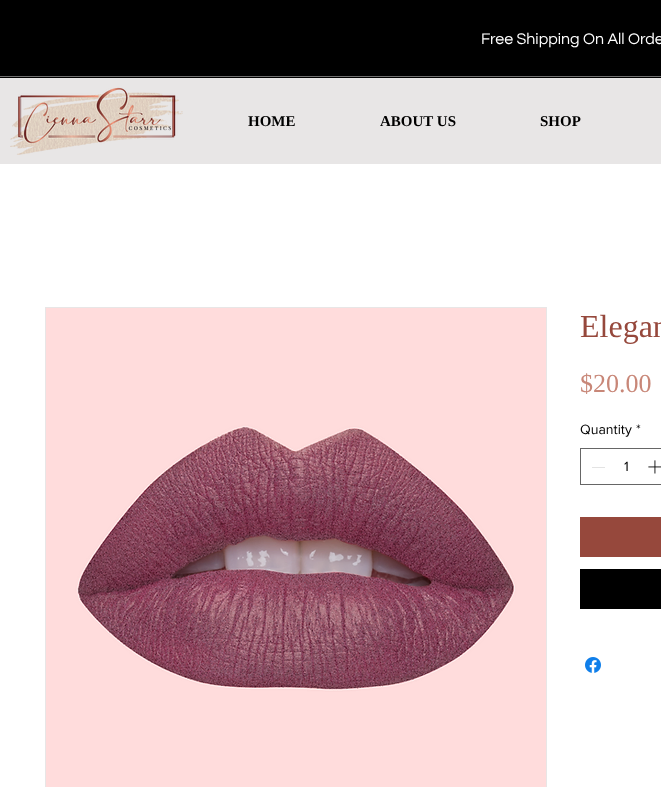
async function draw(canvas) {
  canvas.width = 661
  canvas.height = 787
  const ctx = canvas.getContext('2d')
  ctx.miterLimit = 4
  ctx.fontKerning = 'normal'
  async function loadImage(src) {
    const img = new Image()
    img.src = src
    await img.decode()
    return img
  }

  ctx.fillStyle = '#fff'
  ctx.fillRect(0, 0, 661, 787)
  ctx.fillStyle = '#000'
  ctx.fillRect(0, 0, 661, 78)
  ctx.font = '16px Questrial'
  ctx.fillStyle = '#fff'
  ctx.fillText('Free Shipping On All Orde', 481, 44)
  ctx.fillStyle = '#6f6f6f'
  ctx.fillRect(0, 76, 661, 1)
  ctx.fillStyle = '#e8e6e6'
  ctx.fillRect(0, 78, 661, 86)
  ctx.drawImage(await loadImage('image0.png'), 10, 87, 173, 68)
  ctx.font = 'bold 15px Liberation Serif'
  ctx.fillStyle = '#000'
  ctx.fillText('HOME', 248, 126)
  ctx.fillText('ABOUT US', 380, 126)
  ctx.fillText('SHOP', 540, 126)
  ctx.strokeStyle = '#e8e6e6'
  ctx.strokeRect(45.5, 307.5, 501, 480)
  ctx.drawImage(await loadImage('image1.png'), 46, 308, 500, 479)
  ctx.font = '32px Liberation Serif'
  ctx.fillStyle = '#96483c'
  ctx.fillText('Elegan', 580, 337)
  ctx.font = '26px Liberation Serif'
  ctx.fillStyle = '#c88778'
  ctx.fillText('$20.00', 580, 392)
  ctx.font = '14px "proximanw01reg"'
  ctx.fillStyle = '#000'
  ctx.fillText('Quantity', 580, 434)
  ctx.fillText('*', 636, 434)
  ctx.strokeStyle = '#666'
  ctx.strokeRect(580.5, 448.5, 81, 36)
  ctx.fillStyle = '#e3e3e3'
  ctx.fillRect(592, 467, 13, 1)
  ctx.fillStyle = '#000'
  ctx.fillText('1', 624, 471)
  ctx.drawImage(await loadImage('image2.png'), 648, 460, 13, 14)
  ctx.fillStyle = '#96483c'
  ctx.fillRect(580, 517, 81, 40)
  ctx.fillStyle = '#000'
  ctx.fillRect(580, 569, 81, 40)
  ctx.drawImage(await loadImage('image3.png'), 585, 657, 16, 16)
}

draw(document.querySelector('canvas'))
